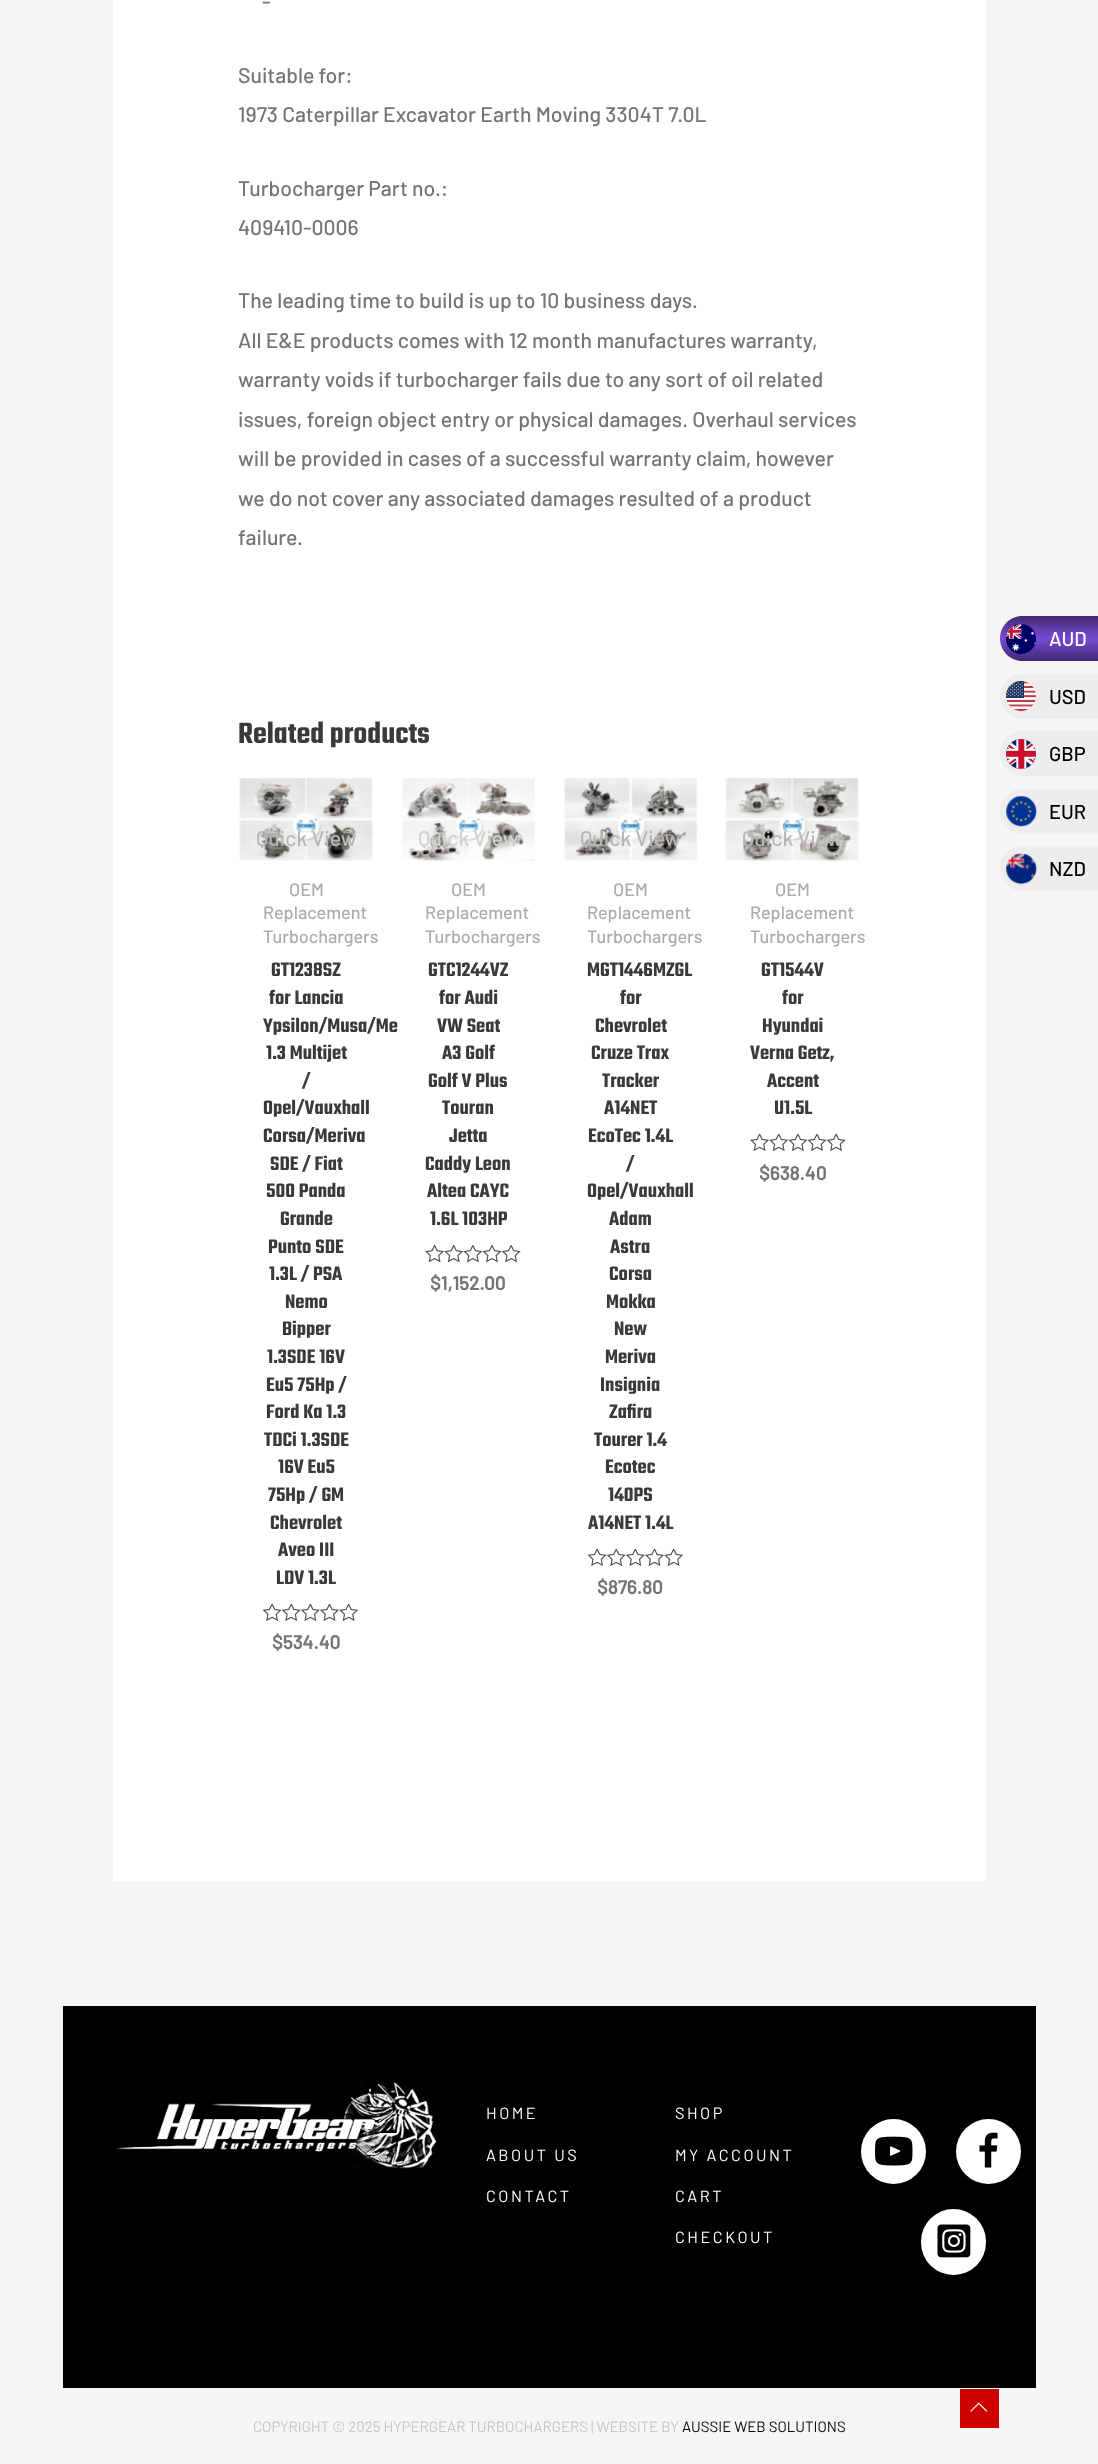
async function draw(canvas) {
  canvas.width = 1098
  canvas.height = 2464
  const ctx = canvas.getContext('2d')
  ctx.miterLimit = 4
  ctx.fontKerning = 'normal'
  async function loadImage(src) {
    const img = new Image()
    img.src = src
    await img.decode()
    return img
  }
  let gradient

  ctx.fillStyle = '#f5f5f5'
  ctx.fillRect(0, 0, 1098, 2464)
  ctx.fillStyle = '#fff'
  ctx.fillRect(113, 0, 873, 1881)
  ctx.font = '500 21.25px Barlow'
  ctx.fillStyle = '#757575'
  ctx.fillText('-', 262, 9)
  ctx.fillText('Suitable for:', 238, 83)
  ctx.fillText('1973 Caterpillar Excavator Earth Moving 3304T 7.0L', 238, 122)
  ctx.fillText('Turbocharger Part no.:', 238, 196)
  ctx.fillText('409410-0006', 238, 235)
  ctx.fillText('The leading time to build is up to 10 business days.', 238, 308)
  ctx.fillText('All E&E products comes with 12 month manufactures warranty,', 238, 348)
  ctx.fillText('warranty voids if turbocharger fails due to any sort of oil related', 238, 387)
  ctx.fillText('issues, foreign object entry or physical damages. Overhaul services', 238, 427)
  ctx.fillText('will be provided in cases of a successful warranty claim, however', 238, 466)
  ctx.fillText('we do not cover any associated damages resulted of a product', 238, 506)
  ctx.fillText('failure.', 238, 545)
  ctx.font = '600 32px Teko'
  ctx.fillStyle = '#3a3a3a'
  ctx.fillText('Related products', 238, 743)
  ctx.drawImage(await loadImage('image0.png'), 239, 778, 134, 83)
  ctx.font = '500 21.25px Barlow'
  ctx.fillStyle = '#b8b7b5'
  ctx.fillText('Quick View', 256, 846)
  ctx.font = '500 18px Barlow'
  ctx.fillStyle = '#acacac'
  ctx.fillText('OEM', 289, 896)
  ctx.fillText('Replacement', 263, 919)
  ctx.fillText('Turbochargers', 263, 943)
  ctx.font = '600 21.25px Teko'
  ctx.fillStyle = '#3a3a3a'
  ctx.fillText('GT1238SZ', 271, 976)
  ctx.fillText('for Lancia', 269, 1004)
  ctx.fillText('Ypsilon/Musa/Me', 263, 1032)
  ctx.fillText('1.3 Multijet', 266, 1059)
  ctx.fillText('/', 302, 1087)
  ctx.fillText('Opel/Vauxhall', 263, 1114)
  ctx.fillText('Corsa/Meriva', 263, 1142)
  ctx.fillText('SDE / Fiat', 270, 1170)
  ctx.fillText('500 Panda', 266, 1197)
  ctx.fillText('Grande', 280, 1225)
  ctx.fillText('Punto SDE', 268, 1253)
  ctx.fillText('1.3L / PSA', 269, 1280)
  ctx.fillText('Nemo', 285, 1308)
  ctx.fillText('Bipper', 282, 1335)
  ctx.fillText('1.3SDE 16V', 267, 1363)
  ctx.fillText('Eu5 75Hp /', 266, 1391)
  ctx.fillText('Ford Ka 1.3', 266, 1418)
  ctx.fillText('TDCi 1.3SDE', 264, 1446)
  ctx.fillText('16V Eu5', 278, 1473)
  ctx.fillText('75Hp / GM', 268, 1501)
  ctx.fillText('Chevrolet', 270, 1529)
  ctx.fillText('Aveo III', 278, 1556)
  ctx.fillText('LDV 1.3L', 276, 1584)
  ctx.drawImage(await loadImage('image1.png'), 263, 1604, 95, 17)
  ctx.font = 'bold 19px Barlow'
  ctx.fillStyle = '#757575'
  ctx.fillText('$534.40', 272, 1649)
  ctx.drawImage(await loadImage('image2.png'), 402, 778, 133, 84)
  ctx.font = '500 21.25px Barlow'
  ctx.fillStyle = '#d1d1cf'
  ctx.fillText('Quick View', 418, 846)
  ctx.font = '500 18px Barlow'
  ctx.fillStyle = '#acacac'
  ctx.fillText('OEM', 451, 896)
  ctx.fillText('Replacement', 425, 919)
  ctx.fillText('Turbochargers', 425, 943)
  ctx.font = '600 21.25px Teko'
  ctx.fillStyle = '#3a3a3a'
  ctx.fillText('GTC1244VZ', 428, 976)
  ctx.fillText('for Audi', 439, 1004)
  ctx.fillText('VW Seat', 437, 1032)
  ctx.fillText('A3 Golf', 442, 1059)
  ctx.fillText('Golf V Plus', 428, 1087)
  ctx.fillText('Touran', 442, 1114)
  ctx.fillText('Jetta', 449, 1142)
  ctx.fillText('Caddy Leon', 425, 1170)
  ctx.fillText('Altea CAYC', 427, 1197)
  ctx.fillText('1.6L 103HP', 430, 1225)
  ctx.drawImage(await loadImage('image3.png'), 425, 1245, 96, 18)
  ctx.font = 'bold 19px Barlow'
  ctx.fillStyle = '#757575'
  ctx.fillText('$1,152.00', 430, 1290)
  ctx.drawImage(await loadImage('image4.png'), 564, 778, 134, 83)
  ctx.font = '500 21.25px Barlow'
  ctx.fillStyle = '#b8b7b5'
  ctx.fillText('Quick View', 580, 846)
  ctx.font = '500 18px Barlow'
  ctx.fillStyle = '#acacac'
  ctx.fillText('OEM', 613, 896)
  ctx.fillText('Replacement', 587, 919)
  ctx.fillText('Turbochargers', 587, 943)
  ctx.font = '600 21.25px Teko'
  ctx.fillStyle = '#3a3a3a'
  ctx.fillText('MGT1446MZGL', 587, 976)
  ctx.fillText('for', 620, 1004)
  ctx.fillText('Chevrolet', 595, 1032)
  ctx.fillText('Cruze Trax', 591, 1059)
  ctx.fillText('Tracker', 602, 1087)
  ctx.fillText('A14NET', 604, 1114)
  ctx.fillText('EcoTec 1.4L', 588, 1142)
  ctx.fillText('/', 626, 1170)
  ctx.fillText('Opel/Vauxhall', 587, 1197)
  ctx.fillText('Adam', 609, 1225)
  ctx.fillText('Astra', 610, 1253)
  ctx.fillText('Corsa', 609, 1280)
  ctx.fillText('Mokka', 606, 1308)
  ctx.fillText('New', 614, 1335)
  ctx.fillText('Meriva', 605, 1363)
  ctx.fillText('Insignia', 600, 1391)
  ctx.fillText('Zafira', 609, 1418)
  ctx.fillText('Tourer 1.4', 594, 1446)
  ctx.fillText('Ecotec', 605, 1473)
  ctx.fillText('140PS', 608, 1501)
  ctx.fillText('A14NET 1.4L', 588, 1529)
  ctx.drawImage(await loadImage('image1.png'), 588, 1549, 95, 17)
  ctx.font = 'bold 19px Barlow'
  ctx.fillStyle = '#757575'
  ctx.fillText('$876.80', 597, 1594)
  ctx.drawImage(await loadImage('image5.png'), 725, 778, 135, 84)
  ctx.font = '500 21.25px Barlow'
  ctx.fillStyle = '#b8b7b5'
  ctx.fillText('Quick View', 742, 846)
  ctx.font = '500 18px Barlow'
  ctx.fillStyle = '#acacac'
  ctx.fillText('OEM', 775, 896)
  ctx.fillText('Replacement', 750, 919)
  ctx.fillText('Turbochargers', 750, 943)
  ctx.font = '600 21.25px Teko'
  ctx.fillStyle = '#3a3a3a'
  ctx.fillText('GT1544V', 761, 976)
  ctx.fillText('for', 782, 1004)
  ctx.fillText('Hyundai', 762, 1032)
  ctx.fillText('Verna Getz,', 750, 1059)
  ctx.fillText('Accent', 767, 1087)
  ctx.fillText('U1.5L', 774, 1114)
  ctx.drawImage(await loadImage('image6.png'), 750, 1134, 96, 17)
  ctx.font = 'bold 19px Barlow'
  ctx.fillStyle = '#757575'
  ctx.fillText('$638.40', 759, 1180)
  ctx.fillStyle = '#000'
  ctx.fillRect(63, 2006, 973, 382)
  ctx.drawImage(await loadImage('image7.png'), 116, 2081, 321, 88)
  ctx.letterSpacing = '2.5px'
  ctx.font = '16.25px Barlow'
  ctx.fillStyle = '#fff'
  ctx.fillText('HOME', 486, 2119)
  ctx.fillText('ABOUT US', 486, 2161)
  ctx.fillText('CONTACT', 486, 2202)
  ctx.fillText('SHOP', 675, 2119)
  ctx.fillText('MY ACCOUNT', 675, 2161)
  ctx.fillText('CART', 675, 2202)
  ctx.fillText('CHECKOUT', 675, 2243)
  ctx.beginPath()
  ctx.arc(893.5, 2151.5, 32.5, 0, 2 * Math.PI)
  ctx.fill()
  ctx.drawImage(await loadImage('image8.png'), 875, 2136, 38, 30)
  ctx.beginPath()
  ctx.arc(988.5, 2151.5, 32.5, 0, 2 * Math.PI)
  ctx.fill()
  ctx.drawImage(await loadImage('image9.png'), 979, 2132, 19, 36)
  ctx.beginPath()
  ctx.roundRect(921, 2209, 65, 66, 32.5)
  ctx.fill()
  ctx.drawImage(await loadImage('image10.png'), 937, 2224, 34, 34)
  ctx.letterSpacing = '0px'
  ctx.font = '15px Barlow'
  ctx.fillStyle = '#c6c6c6'
  ctx.fillText('COPYRIGHT © 2025 HYPERGEAR TURBOCHARGERS | WEBSITE BY', 253, 2432)
  ctx.fillStyle = '#0a0606'
  ctx.fillText('AUSSIE WEB SOLUTIONS', 682, 2432)
  gradient = ctx.createLinearGradient(1060, 616, 1060, 661)
  gradient.addColorStop(0, '#402973')
  gradient.addColorStop(0.5, '#764bd3')
  gradient.addColorStop(1, '#402872')
  ctx.fillStyle = gradient
  ctx.beginPath()
  ctx.moveTo(1022.5, 616)
  ctx.lineTo(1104, 616)
  ctx.lineTo(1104, 661)
  ctx.lineTo(1022.5, 661)
  ctx.bezierCurveTo(1010, 661, 1000, 651, 1000, 638.5)
  ctx.bezierCurveTo(1000, 626, 1010, 616, 1022.5, 616)
  ctx.closePath()
  ctx.fill()
  ctx.drawImage(await loadImage('image11.png'), 1006, 624, 30, 30)
  ctx.font = '500 20px Barlow'
  ctx.fillStyle = '#fff'
  ctx.fillText('AUD', 1049, 646)
  ctx.fillStyle = '#eeecec'
  ctx.beginPath()
  ctx.moveTo(1022.5, 674)
  ctx.lineTo(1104, 674)
  ctx.lineTo(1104, 719)
  ctx.lineTo(1022.5, 719)
  ctx.bezierCurveTo(1010, 719, 1000, 709, 1000, 696.5)
  ctx.bezierCurveTo(1000, 684, 1010, 674, 1022.5, 674)
  ctx.closePath()
  ctx.fill()
  ctx.drawImage(await loadImage('image12.png'), 1006, 681, 30, 30)
  ctx.fillStyle = '#000'
  ctx.fillText('USD', 1049, 704)
  ctx.fillStyle = '#eeecec'
  ctx.beginPath()
  ctx.moveTo(1022.5, 731)
  ctx.lineTo(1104, 731)
  ctx.lineTo(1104, 776)
  ctx.lineTo(1022.5, 776)
  ctx.bezierCurveTo(1010, 776, 1000, 766, 1000, 753.5)
  ctx.bezierCurveTo(1000, 741, 1010, 731, 1022.5, 731)
  ctx.closePath()
  ctx.fill()
  ctx.drawImage(await loadImage('image13.png'), 1006, 739, 30, 30)
  ctx.fillStyle = '#000'
  ctx.fillText('GBP', 1049, 761)
  ctx.fillStyle = '#eeecec'
  ctx.beginPath()
  ctx.moveTo(1022.5, 789)
  ctx.lineTo(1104, 789)
  ctx.lineTo(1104, 834)
  ctx.lineTo(1022.5, 834)
  ctx.bezierCurveTo(1010, 834, 1000, 824, 1000, 811.5)
  ctx.bezierCurveTo(1000, 799, 1010, 789, 1022.5, 789)
  ctx.closePath()
  ctx.fill()
  ctx.drawImage(await loadImage('image14.png'), 1006, 796, 31, 31)
  ctx.fillStyle = '#000'
  ctx.fillText('EUR', 1049, 819)
  ctx.fillStyle = '#eeecec'
  ctx.beginPath()
  ctx.moveTo(1022.5, 846)
  ctx.lineTo(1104, 846)
  ctx.lineTo(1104, 891)
  ctx.lineTo(1022.5, 891)
  ctx.bezierCurveTo(1010, 891, 1000, 881, 1000, 868.5)
  ctx.bezierCurveTo(1000, 856, 1010, 846, 1022.5, 846)
  ctx.closePath()
  ctx.fill()
  ctx.drawImage(await loadImage('image15.png'), 1006, 853, 31, 32)
  ctx.fillStyle = '#000'
  ctx.fillText('NZD', 1049, 876)
  ctx.fillStyle = '#c00'
  ctx.fillRect(960, 2389, 39, 39)
  ctx.drawImage(await loadImage('image16.png'), 970, 2402, 18, 10)
}

draw(document.querySelector('canvas'))
